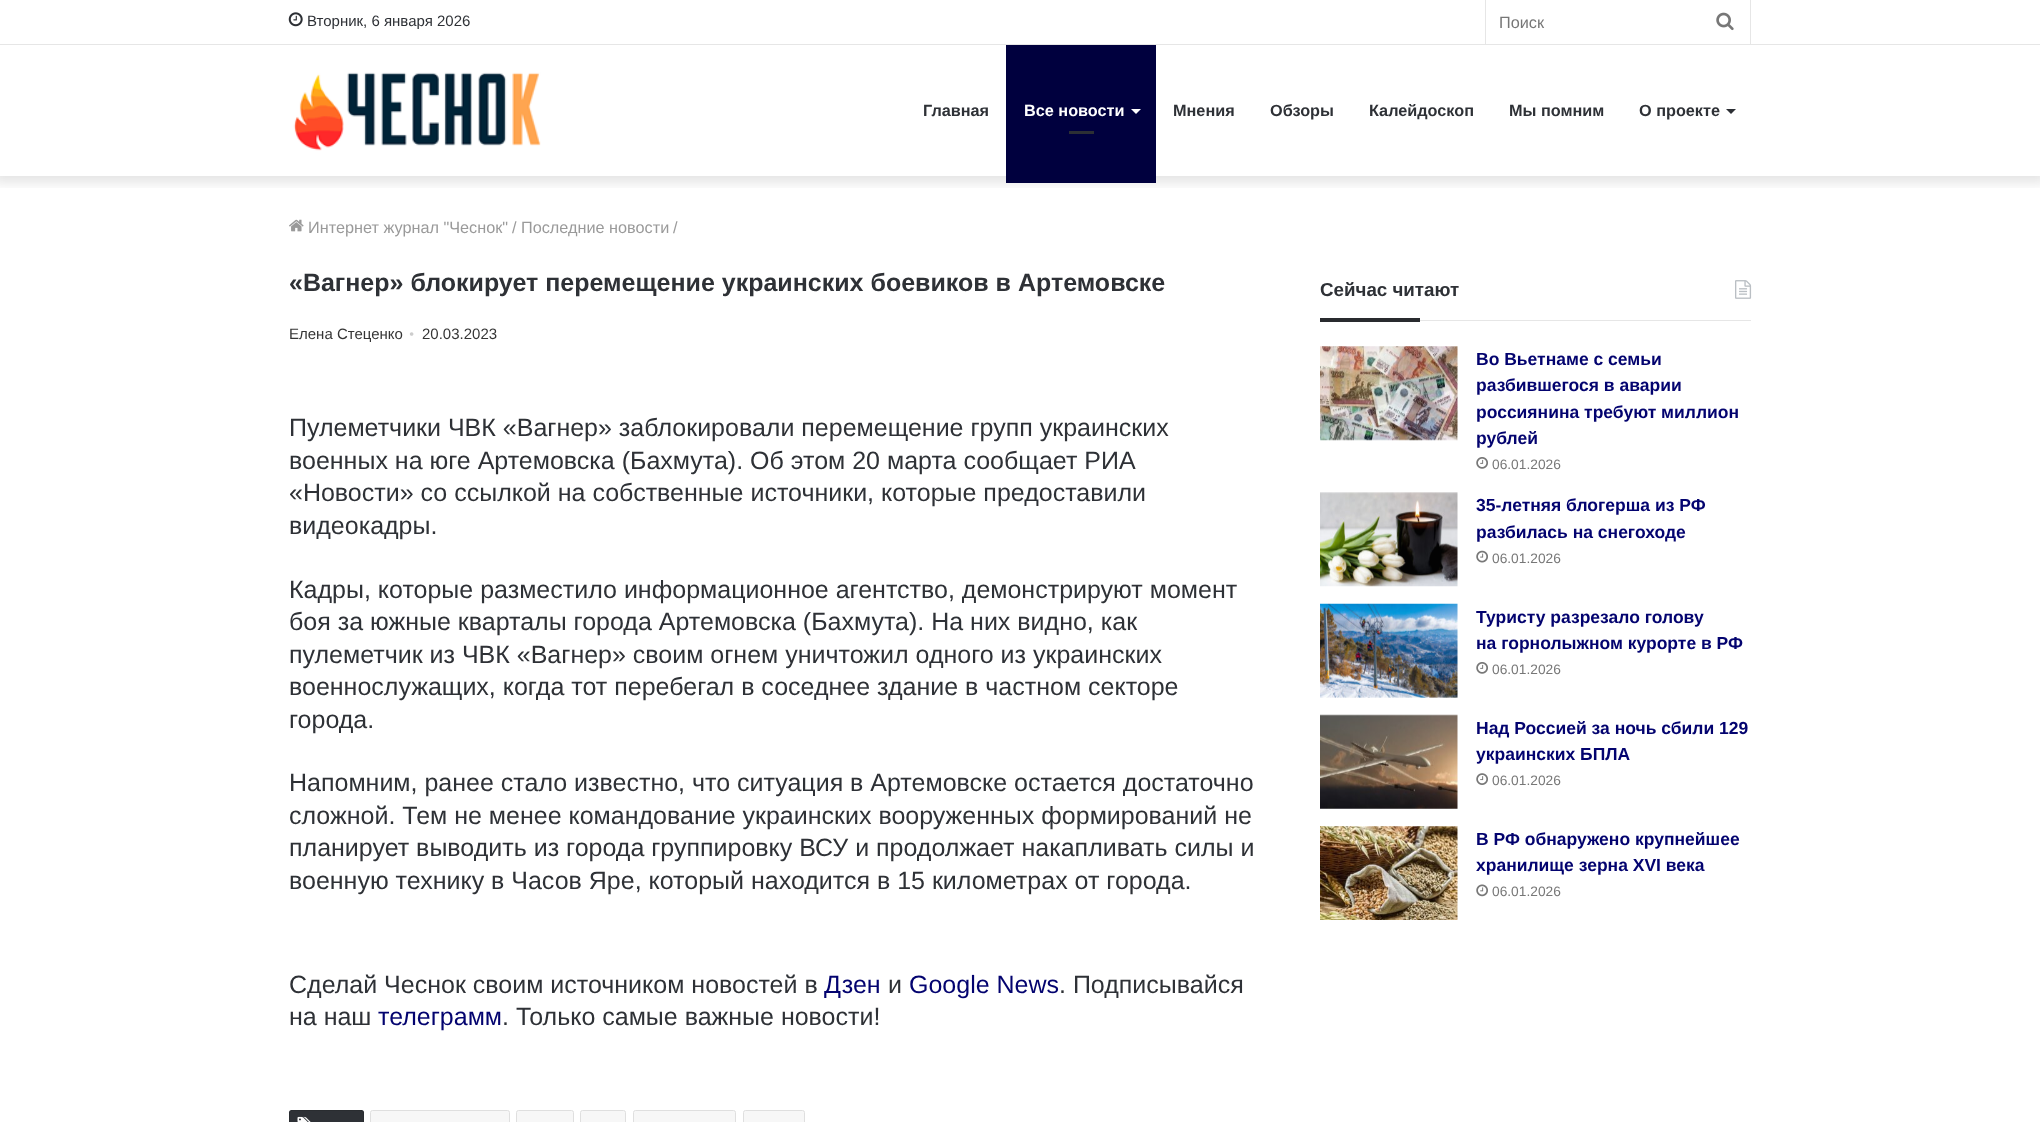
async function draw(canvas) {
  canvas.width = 2040
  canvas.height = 1122
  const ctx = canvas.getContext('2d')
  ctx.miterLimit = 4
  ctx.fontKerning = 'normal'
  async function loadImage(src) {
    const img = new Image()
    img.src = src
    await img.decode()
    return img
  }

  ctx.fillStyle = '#fff'
  ctx.fillRect(0, 0, 2040, 1122)
  ctx.save()
  ctx.beginPath()
  ctx.rect(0, 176, 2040, 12)
  ctx.clip()
  ctx.fillStyle = '#0000001a'
  ctx.filter = 'blur(6px)'
  ctx.beginPath()
  ctx.rect(-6, -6, 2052, 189)
  ctx.fill()
  ctx.filter = 'none'
  ctx.restore()
  ctx.fillStyle = '#e6e6e6'
  ctx.fillRect(0, 44, 2040, 1)
  ctx.drawImage(await loadImage('image0.png'), 288, 12, 15, 15)
  ctx.font = '15px Liberation Sans'
  ctx.fillStyle = '#2e3136'
  ctx.fillText('Вторник, 6 января 2026', 307, 26)
  ctx.fillStyle = '#e6e6e6'
  ctx.fillRect(1750, 0, 1, 44)
  ctx.fillRect(1485, 0, 1, 44)
  ctx.font = '16.25px Liberation Sans'
  ctx.fillStyle = '#777'
  ctx.fillText('Поиск', 1499, 28)
  ctx.drawImage(await loadImage('image1.png'), 1716, 12, 18, 19)
  ctx.drawImage(await loadImage('image2.png'), 293, 72, 248, 79)
  ctx.font = 'bold 16.25px Liberation Sans'
  ctx.fillStyle = '#2e3136'
  ctx.fillText('Главная', 923, 116)
  ctx.fillStyle = '#00003e'
  ctx.fillRect(1006, 45, 150, 138)
  ctx.fillStyle = '#fff'
  ctx.fillText('Все новости', 1024, 116)
  ctx.beginPath()
  ctx.moveTo(1131, 109)
  ctx.lineTo(1141, 109)
  ctx.lineTo(1136, 114)
  ctx.closePath()
  ctx.fill()
  ctx.fillStyle = '#2c2f34'
  ctx.fillRect(1069, 131, 25, 3)
  ctx.fillStyle = '#2e3136'
  ctx.fillText('Мнения', 1173, 116)
  ctx.fillText('Обзоры', 1270, 116)
  ctx.fillText('Калейдоскоп', 1369, 116)
  ctx.fillText('Мы помним', 1509, 116)
  ctx.fillText('О проекте', 1639, 116)
  ctx.fillStyle = '#2c2f34'
  ctx.beginPath()
  ctx.moveTo(1726, 109)
  ctx.lineTo(1736, 109)
  ctx.lineTo(1731, 114)
  ctx.closePath()
  ctx.fill()
  ctx.drawImage(await loadImage('image3.png'), 289, 219, 15, 13)
  ctx.font = '16.25px Liberation Sans'
  ctx.fillStyle = '#9a9a9a'
  ctx.fillText('Интернет журнал "Чеснок"', 308, 233)
  ctx.fillText('/', 512, 233)
  ctx.fillText('Последние новости', 521, 233)
  ctx.fillText('/', 673, 233)
  ctx.font = 'bold 25px Liberation Sans'
  ctx.fillStyle = '#2e3136'
  ctx.fillText('«Вагнер» блокирует перемещение украинских боевиков в Артемовске', 289, 291)
  ctx.font = '15px Liberation Sans'
  ctx.fillStyle = '#353535'
  ctx.fillText('Елена Стеценко', 289, 339)
  ctx.font = '15px Liberation Serif'
  ctx.fillStyle = '#cdcdcd'
  ctx.fillText('•', 409, 339)
  ctx.font = '15px Liberation Sans'
  ctx.fillStyle = '#353535'
  ctx.fillText('20.03.2023', 422, 339)
  ctx.font = '25px Liberation Sans'
  ctx.fillStyle = '#2e3136'
  ctx.fillText('Пулеметчики ЧВК «Вагнер» заблокировали перемещение групп украинских', 289, 436)
  ctx.fillText('военных на юге Артемовска (Бахмута). Об этом 20 марта сообщает РИА', 289, 469)
  ctx.fillText('«Новости» со ссылкой на собственные источники, которые предоставили', 289, 501)
  ctx.fillText('видеокадры.', 289, 534)
  ctx.fillText('Кадры, которые разместило информационное агентство, демонстрируют момент', 289, 598)
  ctx.fillText('боя за южные кварталы города Артемовска (Бахмута). На них видно, как', 289, 630)
  ctx.fillText('пулеметчик из ЧВК «Вагнер» своим огнем уничтожил одного из украинских', 289, 663)
  ctx.fillText('военнослужащих, когда тот перебегал в соседнее здание в частном секторе', 289, 695)
  ctx.fillText('города.', 289, 728)
  ctx.fillText('Напомним, ранее стало известно, что ситуация в Артемовске остается достаточно', 289, 791)
  ctx.fillText('сложной. Тем не менее командование украинских вооруженных формирований не', 289, 824)
  ctx.fillText('планирует выводить из города группировку ВСУ и продолжает накапливать силы и', 289, 856)
  ctx.fillText('военную технику в Часов Яре, который находится в 15 километрах от города.', 289, 889)
  ctx.fillText('Сделай Чеснок своим источником новостей в', 289, 993)
  ctx.fillStyle = '#03036f'
  ctx.fillText('Дзен', 824, 993)
  ctx.fillStyle = '#2e3136'
  ctx.fillText('и', 888, 993)
  ctx.fillStyle = '#03036f'
  ctx.fillText('Google News', 909, 993)
  ctx.fillStyle = '#2e3136'
  ctx.fillText('. Подписывайся', 1059, 993)
  ctx.fillText('на наш', 289, 1025)
  ctx.fillStyle = '#03036f'
  ctx.fillText('телеграмм', 378, 1025)
  ctx.fillStyle = '#2e3136'
  ctx.fillText('. Только самые важные новости!', 502, 1025)
  ctx.beginPath()
  ctx.roundRect(289, 1110, 75, 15, 2.5)
  ctx.fill()
  ctx.beginPath()
  ctx.roundRect(289.5, 1110.5, 74, 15, 2)
  ctx.strokeStyle = '#0303031a'
  ctx.stroke()
  ctx.drawImage(await loadImage('image4.png'), 297, 1116, 14, 6)
  ctx.fillStyle = '#f7f7f7'
  ctx.beginPath()
  ctx.roundRect(370.5, 1110.5, 139, 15, 2)
  ctx.fill()
  ctx.strokeStyle = '#dfdfdf'
  ctx.stroke()
  ctx.beginPath()
  ctx.roundRect(516.5, 1110.5, 57, 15, 2)
  ctx.fill()
  ctx.stroke()
  ctx.beginPath()
  ctx.roundRect(580.5, 1110.5, 45, 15, 2)
  ctx.fill()
  ctx.stroke()
  ctx.beginPath()
  ctx.roundRect(633.5, 1110.5, 102, 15, 2)
  ctx.fill()
  ctx.stroke()
  ctx.beginPath()
  ctx.roundRect(743.5, 1110.5, 61, 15, 2)
  ctx.fill()
  ctx.stroke()
  ctx.fillStyle = '#e6e6e6'
  ctx.fillRect(1420, 320, 331, 1)
  ctx.font = 'bold 18.75px Liberation Sans'
  ctx.fillStyle = '#2e3136'
  ctx.fillText('Сейчас читают', 1320, 296)
  ctx.drawImage(await loadImage('image5.png'), 1735, 280, 17, 19)
  ctx.fillStyle = '#292b2f'
  ctx.fillRect(1320, 318, 100, 4)
  ctx.drawImage(await loadImage('image6.png'), 1320, 346, 138, 95)
  ctx.font = 'bold 17.5px Liberation Sans'
  ctx.fillStyle = '#03036f'
  ctx.fillText('Во Вьетнаме с семьи', 1476, 365)
  ctx.fillText('разбившегося в аварии', 1476, 391)
  ctx.fillText('россиянина требуют миллион', 1476, 418)
  ctx.fillText('рублей', 1476, 444)
  ctx.drawImage(await loadImage('image7.png'), 1476, 457, 12, 12)
  ctx.font = '13.75px Liberation Sans'
  ctx.fillStyle = '#777'
  ctx.fillText('06.01.2026', 1492, 469)
  ctx.drawImage(await loadImage('image8.png'), 1320, 492, 138, 95)
  ctx.font = 'bold 17.5px Liberation Sans'
  ctx.fillStyle = '#03036f'
  ctx.fillText('35-летняя блогерша из РФ', 1476, 511)
  ctx.fillText('разбилась на снегоходе', 1476, 538)
  ctx.drawImage(await loadImage('image9.png'), 1476, 550, 12, 13)
  ctx.font = '13.75px Liberation Sans'
  ctx.fillStyle = '#777'
  ctx.fillText('06.01.2026', 1492, 563)
  ctx.drawImage(await loadImage('image10.png'), 1320, 603, 138, 95)
  ctx.font = 'bold 17.5px Liberation Sans'
  ctx.fillStyle = '#03036f'
  ctx.fillText('Туристу разрезало голову', 1476, 623)
  ctx.fillText('на горнолыжном курорте в РФ', 1476, 649)
  ctx.drawImage(await loadImage('image7.png'), 1476, 662, 12, 12)
  ctx.font = '13.75px Liberation Sans'
  ctx.fillStyle = '#777'
  ctx.fillText('06.01.2026', 1492, 674)
  ctx.drawImage(await loadImage('image11.png'), 1320, 714, 138, 95)
  ctx.font = 'bold 17.5px Liberation Sans'
  ctx.fillStyle = '#03036f'
  ctx.fillText('Над Россией за ночь сбили 129', 1476, 734)
  ctx.fillText('украинских БПЛА', 1476, 760)
  ctx.drawImage(await loadImage('image12.png'), 1476, 773, 12, 12)
  ctx.font = '13.75px Liberation Sans'
  ctx.fillStyle = '#777'
  ctx.fillText('06.01.2026', 1492, 785)
  ctx.drawImage(await loadImage('image13.png'), 1320, 826, 138, 94)
  ctx.font = 'bold 17.5px Liberation Sans'
  ctx.fillStyle = '#03036f'
  ctx.fillText('В РФ обнаружено крупнейшее', 1476, 845)
  ctx.fillText('хранилище зерна XVI века', 1476, 871)
  ctx.drawImage(await loadImage('image14.png'), 1476, 884, 12, 13)
  ctx.font = '13.75px Liberation Sans'
  ctx.fillStyle = '#777'
  ctx.fillText('06.01.2026', 1492, 896)
}

draw(document.querySelector('canvas'))
